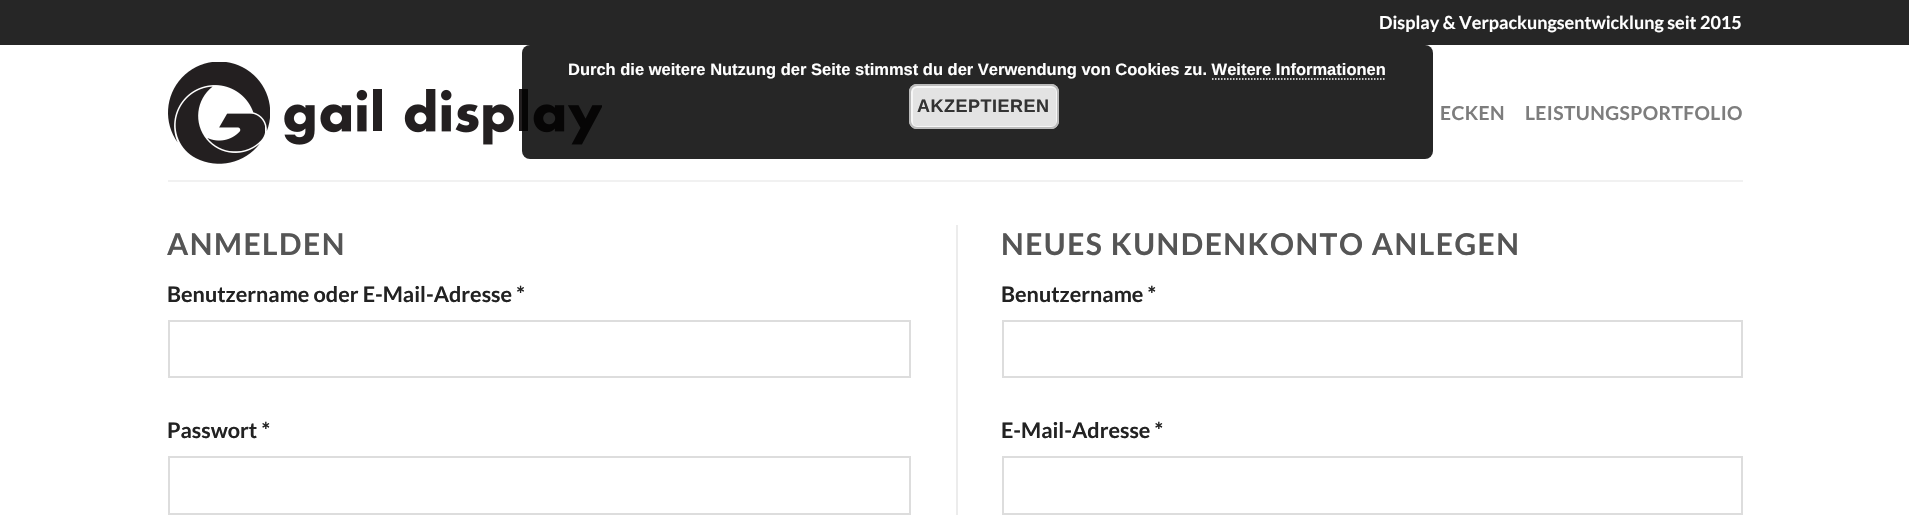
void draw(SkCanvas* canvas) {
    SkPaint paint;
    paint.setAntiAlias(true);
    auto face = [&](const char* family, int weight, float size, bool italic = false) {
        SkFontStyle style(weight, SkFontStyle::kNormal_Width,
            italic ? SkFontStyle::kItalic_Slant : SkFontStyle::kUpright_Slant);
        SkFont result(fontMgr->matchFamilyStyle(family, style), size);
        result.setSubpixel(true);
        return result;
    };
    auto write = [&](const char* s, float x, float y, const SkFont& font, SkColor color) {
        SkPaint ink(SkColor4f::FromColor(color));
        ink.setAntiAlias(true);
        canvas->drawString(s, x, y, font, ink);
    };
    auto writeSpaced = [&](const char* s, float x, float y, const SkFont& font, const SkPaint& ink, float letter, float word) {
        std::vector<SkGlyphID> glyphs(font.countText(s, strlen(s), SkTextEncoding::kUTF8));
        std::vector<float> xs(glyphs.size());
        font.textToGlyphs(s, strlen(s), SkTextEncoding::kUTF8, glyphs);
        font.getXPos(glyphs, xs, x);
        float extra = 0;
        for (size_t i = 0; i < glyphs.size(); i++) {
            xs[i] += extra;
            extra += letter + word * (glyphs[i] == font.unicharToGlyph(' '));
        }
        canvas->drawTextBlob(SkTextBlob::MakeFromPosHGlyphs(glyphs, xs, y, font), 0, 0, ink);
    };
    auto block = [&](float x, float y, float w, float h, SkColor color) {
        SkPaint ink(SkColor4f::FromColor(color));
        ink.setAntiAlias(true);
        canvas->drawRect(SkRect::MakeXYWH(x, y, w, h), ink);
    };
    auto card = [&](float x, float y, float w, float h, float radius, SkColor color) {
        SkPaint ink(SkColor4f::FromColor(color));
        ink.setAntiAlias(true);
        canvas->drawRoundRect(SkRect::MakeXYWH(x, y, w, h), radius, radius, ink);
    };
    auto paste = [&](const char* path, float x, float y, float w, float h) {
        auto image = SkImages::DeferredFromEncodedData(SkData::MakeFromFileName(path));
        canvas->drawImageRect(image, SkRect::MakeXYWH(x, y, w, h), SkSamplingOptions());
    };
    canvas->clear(SK_ColorWHITE);
    block(0, 0, 1909, 45, SkColorSetRGB(38, 38, 38));
    auto kFont1 = face("Lato", 700, 18);
    write("Display & Verpackungsentwicklung seit 2015", 1379, 29, kFont1, SK_ColorWHITE);
    paste("pic1.png", 168, 62, 434, 102);
    auto kFont2 = face("Lato", 700, 19.25f);
    paint.setColor(SkColorSetRGB(125, 125, 125));
    writeSpaced("ECKEN", 1440, 120, kFont2, paint, 0.4f, 0);
    writeSpaced("LEISTUNGSPORTFOLIO", 1525, 120, kFont2, paint, 0.4f, 0);
    block(168, 180, 1575, 2, SkColorSetRGB(241, 241, 241));
    auto kFont3 = face("Lato", 700, 30);
    paint.setColor(SkColorSetRGB(85, 85, 85));
    writeSpaced("ANMELDEN", 167, 255, kFont3, paint, 1.5f, 0);
    auto kFont4 = face("Lato", 700, 21.6f);
    write("Benutzername oder E-Mail-Adresse *", 167, 302, kFont4, SkColorSetRGB(34, 34, 34));
    paint.setStyle(SkPaint::kStroke_Style);
    paint.setStrokeWidth(2);
    paint.setColor(SkColorSetRGB(221, 221, 221));
    canvas->drawRect(SkRect::MakeXYWH(169, 321, 741, 56), paint);
    write("Passwort *", 167, 438, kFont4, SkColorSetRGB(34, 34, 34));
    canvas->drawRect(SkRect::MakeXYWH(169, 457, 741, 57), paint);
    block(956, 225, 2, 290, SkColorSetRGB(236, 236, 236));
    paint.setStyle(SkPaint::kFill_Style);
    paint.setColor(SkColorSetRGB(85, 85, 85));
    writeSpaced("NEUES KUNDENKONTO ANLEGEN", 1001, 255, kFont3, paint, 1.5f, 0);
    write("Benutzername *", 1001, 302, kFont4, SkColorSetRGB(34, 34, 34));
    paint.setStyle(SkPaint::kStroke_Style);
    paint.setColor(SkColorSetRGB(221, 221, 221));
    canvas->drawRect(SkRect::MakeXYWH(1003, 321, 739, 56), paint);
    write("E-Mail-Adresse *", 1001, 438, kFont4, SkColorSetRGB(34, 34, 34));
    canvas->drawRect(SkRect::MakeXYWH(1003, 457, 739, 57), paint);
    card(522, 45, 911, 114, 8, SkColorSetARGB(217, 0, 0, 0));
    auto kFont5 = face("Liberation Sans", 700, 16.5f);
    write("Durch die weitere Nutzung der Seite stimmst du der Verwendung von Cookies zu. Weitere Informationen", 568, 75, kFont5, SK_ColorWHITE);
    paint.setStrokeWidth(1.5f);
    paint.setColor(SK_ColorWHITE);
    paint.setPathEffect(SkDashPathEffect::Make({{1.5f, 1.5f}}, 0));
    canvas->drawPath(SkPathBuilder().moveTo(1212, 79).lineTo(1386, 79).detach(), paint);
    paint.setPathEffect(nullptr);
    card(909, 84, 150, 45, 8, SkColorSetRGB(227, 227, 227));
    paint.setStrokeWidth(2);
    paint.setColor(SkColorSetRGB(246, 246, 246));
    canvas->drawRoundRect(SkRect::MakeXYWH(912, 87, 145, 40), 5, 5, paint);
    paint.setColor(SkColorSetRGB(187, 187, 187));
    canvas->drawRoundRect(SkRect::MakeXYWH(910, 85, 148, 43), 7, 7, paint);
    auto kFont6 = face("Liberation Sans", 700, 18);
    paint.setStyle(SkPaint::kFill_Style);
    paint.setColor(SkColorSetRGB(51, 51, 51));
    writeSpaced("AKZEPTIEREN", 917, 112, kFont6, paint, 0.5f, 0);
}
